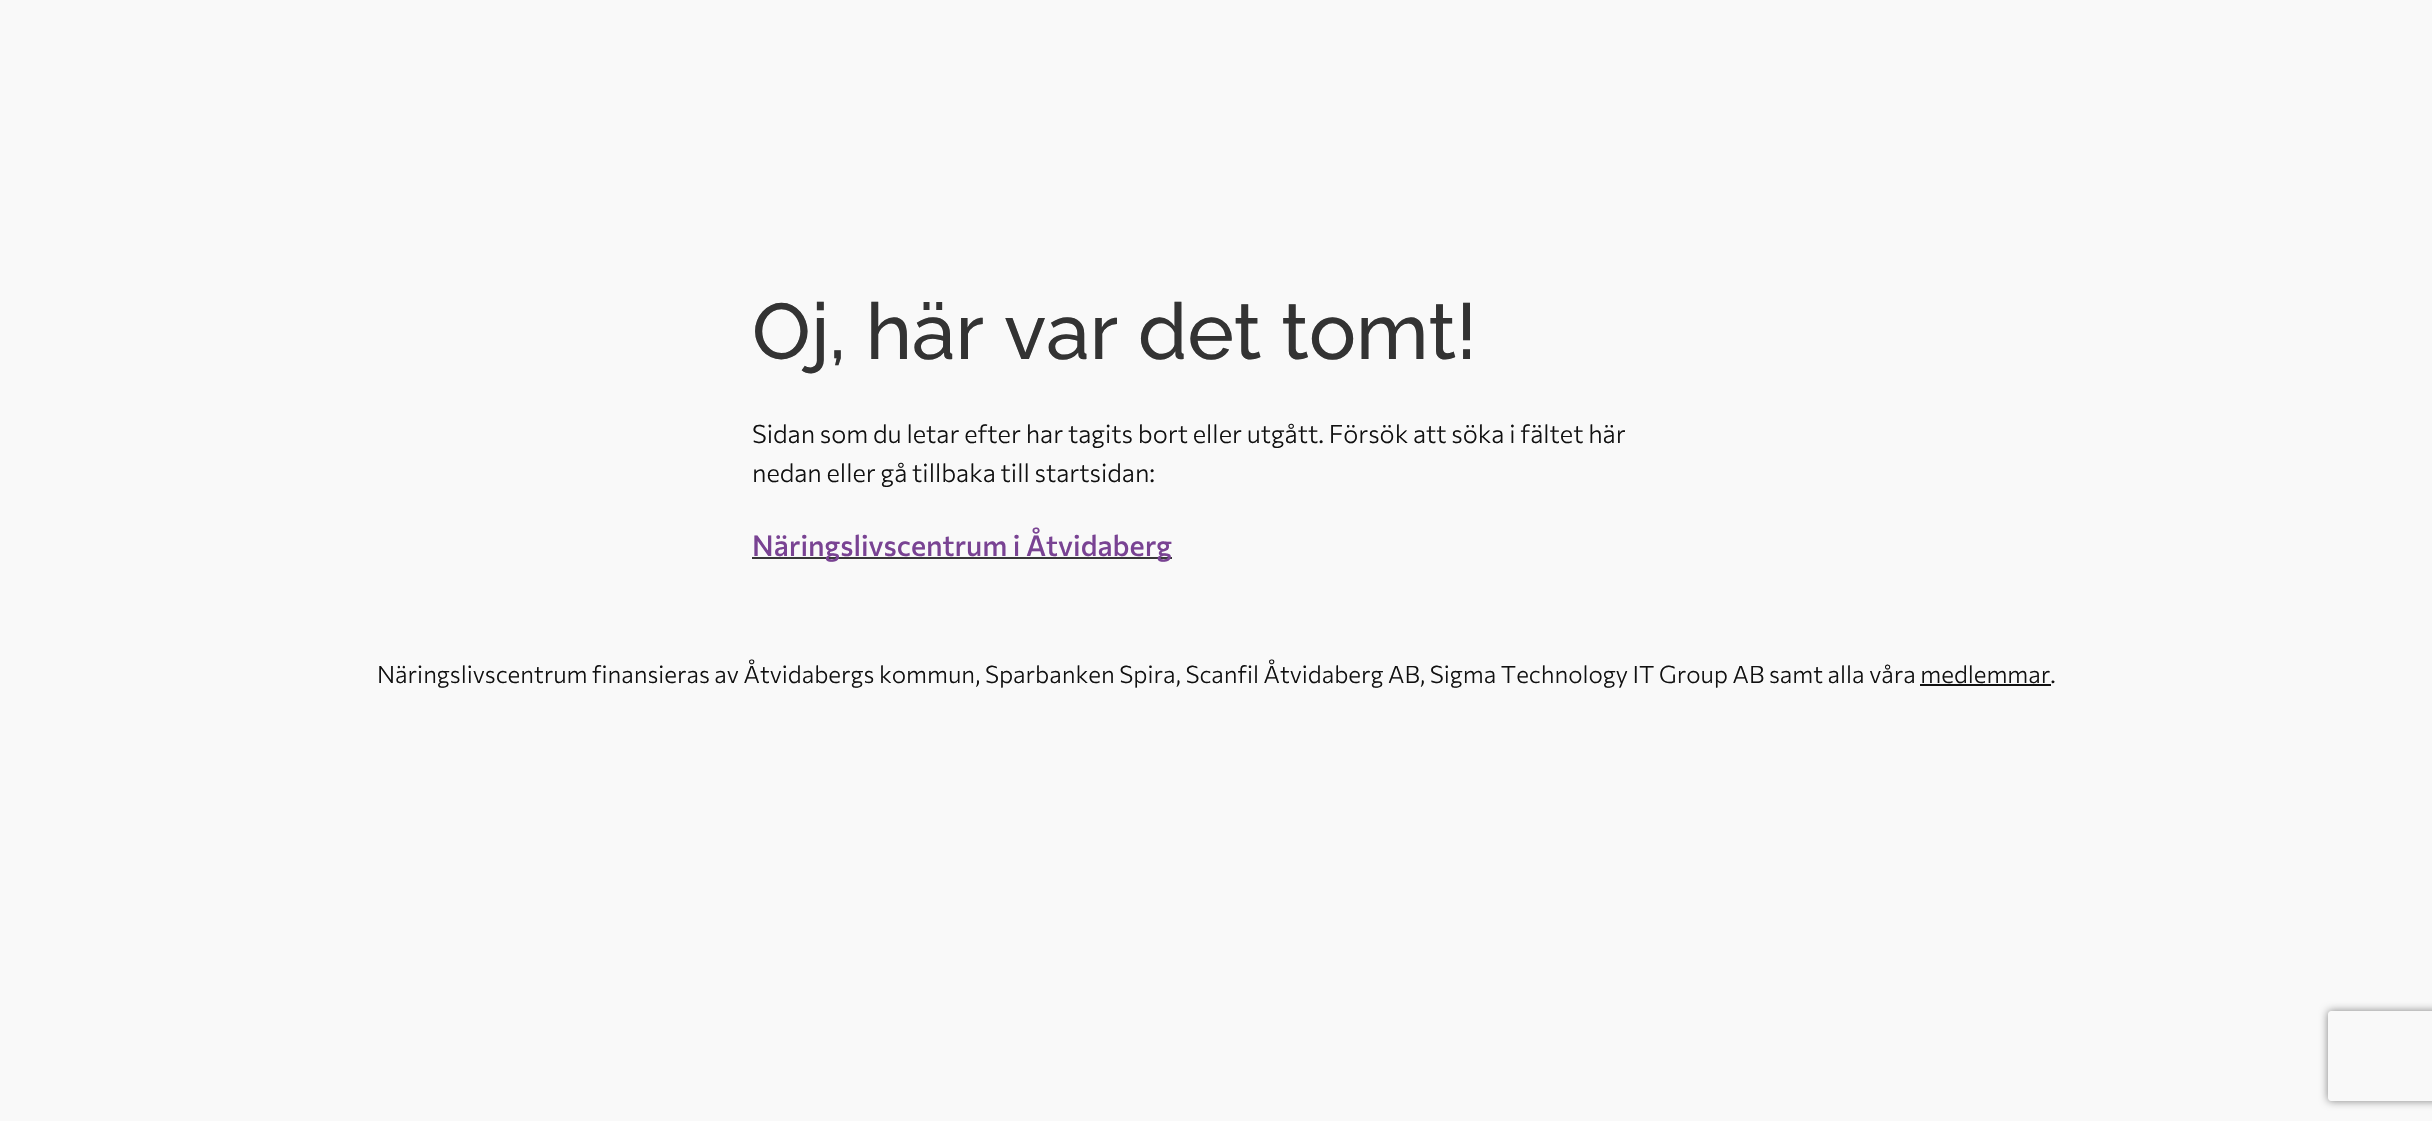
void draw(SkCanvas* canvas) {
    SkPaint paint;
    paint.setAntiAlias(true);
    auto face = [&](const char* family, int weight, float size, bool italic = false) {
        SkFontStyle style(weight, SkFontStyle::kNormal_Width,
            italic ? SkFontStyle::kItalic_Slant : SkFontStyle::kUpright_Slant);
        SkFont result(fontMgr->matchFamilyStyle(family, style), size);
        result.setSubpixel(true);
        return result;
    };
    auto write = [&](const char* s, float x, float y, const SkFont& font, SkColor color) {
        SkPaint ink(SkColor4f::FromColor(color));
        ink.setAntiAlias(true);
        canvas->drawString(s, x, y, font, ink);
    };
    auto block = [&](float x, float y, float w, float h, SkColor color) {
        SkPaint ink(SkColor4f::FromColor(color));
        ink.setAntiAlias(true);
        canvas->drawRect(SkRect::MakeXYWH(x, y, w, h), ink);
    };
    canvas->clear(SkColorSetRGB(249, 249, 249));
    auto kFont1 = face("Raleway", 500, 78.5f);
    write("Oj, här var det tomt!", 752, 359, kFont1, SkColorSetRGB(51, 51, 51));
    auto kFont2 = face("Commissioner", 300, 25.2f);
    write("Sidan som du letar efter har tagits bort eller utgått. Försök att söka i fältet här", 752, 443, kFont2, SkColorSetRGB(17, 17, 17));
    write("nedan eller gå tillbaka till startsidan:", 752, 482, kFont2, SkColorSetRGB(17, 17, 17));
    block(752, 557, 420, 2, SkColorSetRGB(55, 55, 55));
    auto kFont3 = face("Commissioner", 500, 28.75f);
    write("Näringslivscentrum i Åtvidaberg", 752, 556, kFont3, SkColorSetRGB(121, 67, 147));
    auto kFont4 = face("Commissioner", 300, 24);
    write("Näringslivscentrum finansieras av Åtvidabergs kommun, Sparbanken Spira, Scanfil Åtvidaberg AB, Sigma Technology IT Group AB samt alla våra medlemmar.", 377, 683, kFont4, SkColorSetRGB(17, 17, 17));
    block(1920, 684, 131, 2, SkColorSetRGB(17, 17, 17));
    canvas->save();
    canvas->clipPath(SkPathBuilder(SkPathFillType::kEvenOdd).moveTo(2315, 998).lineTo(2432, 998).lineTo(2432, 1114).lineTo(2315, 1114).close().moveTo(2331, 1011).lineTo(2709, 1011).cubicTo(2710.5f, 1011, 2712, 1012.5f, 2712, 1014).lineTo(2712, 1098).cubicTo(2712, 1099.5f, 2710.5f, 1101, 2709, 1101).lineTo(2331, 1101).cubicTo(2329.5f, 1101, 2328, 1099.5f, 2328, 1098).lineTo(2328, 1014).cubicTo(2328, 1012.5f, 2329.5f, 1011, 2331, 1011).close().detach(), true);
    paint.setColor(SkColorSetRGB(128, 128, 128));
    paint.setMaskFilter(SkMaskFilter::MakeBlur(kNormal_SkBlurStyle, 4));
    canvas->drawRoundRect(SkRect::MakeXYWH(2328, 1011, 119, 90), 3, 3, paint);
    paint.setMaskFilter(nullptr);
    canvas->restore();
}
